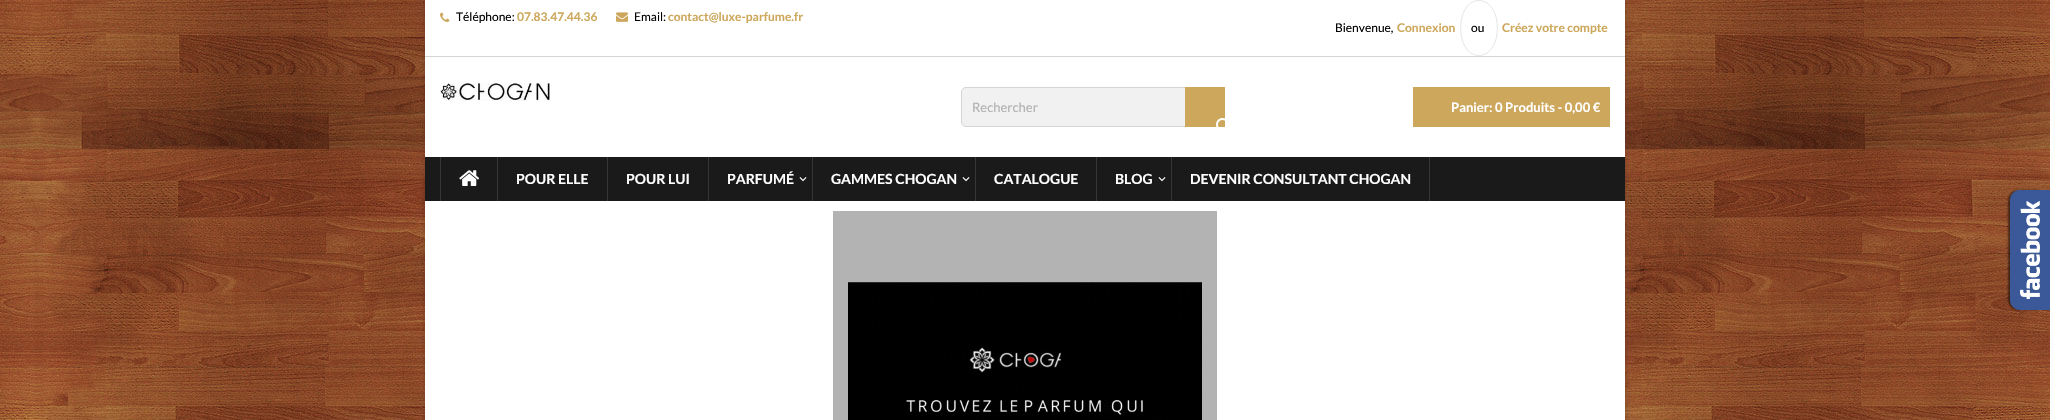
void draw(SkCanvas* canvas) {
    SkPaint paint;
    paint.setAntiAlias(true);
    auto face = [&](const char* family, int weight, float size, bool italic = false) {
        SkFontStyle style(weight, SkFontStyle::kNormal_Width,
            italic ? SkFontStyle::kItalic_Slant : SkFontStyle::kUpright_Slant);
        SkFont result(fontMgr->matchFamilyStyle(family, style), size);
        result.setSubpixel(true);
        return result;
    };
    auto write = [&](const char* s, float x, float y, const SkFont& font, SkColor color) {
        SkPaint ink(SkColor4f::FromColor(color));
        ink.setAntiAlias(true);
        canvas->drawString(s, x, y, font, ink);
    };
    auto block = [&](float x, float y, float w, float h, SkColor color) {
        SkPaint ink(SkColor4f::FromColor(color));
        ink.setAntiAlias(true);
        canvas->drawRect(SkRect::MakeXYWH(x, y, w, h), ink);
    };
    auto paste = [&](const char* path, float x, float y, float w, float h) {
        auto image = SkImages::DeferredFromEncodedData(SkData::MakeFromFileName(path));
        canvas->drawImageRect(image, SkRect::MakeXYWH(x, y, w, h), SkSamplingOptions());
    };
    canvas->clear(SK_ColorWHITE);
    paste("pic1.png", 0, 0, 2050, 420);
    paint.setColor(SkColorSetARGB(51, 0, 0, 0));
    paint.setMaskFilter(SkMaskFilter::MakeBlur(kNormal_SkBlurStyle, 2));
    canvas->drawRect(SkRect::MakeXYWH(425, 0, 1200, 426), paint);
    paint.setMaskFilter(nullptr);
    block(425, 0, 1200, 420, SK_ColorWHITE);
    block(425, 56, 1200, 1, SkColorSetRGB(214, 212, 212));
    paste("pic2.png", 440, 12, 10, 10);
    auto kFont1 = face("Lato", 400, 12);
    write("Téléphone:", 456, 21, kFont1, SK_ColorBLACK);
    auto kFont2 = face("Lato", 700, 12);
    write("07.83.47.44.36", 517, 21, kFont2, SkColorSetRGB(205, 168, 92));
    paste("pic3.png", 616, 12, 12, 10);
    write("Email:", 634, 21, kFont1, SK_ColorBLACK);
    write("contact@luxe-parfume.fr", 668, 21, kFont2, SkColorSetRGB(205, 168, 92));
    write("Bienvenue,", 1335, 32, kFont1, SK_ColorBLACK);
    write("Connexion", 1397, 32, kFont2, SkColorSetRGB(205, 168, 92));
    paint.setStyle(SkPaint::kStroke_Style);
    paint.setStrokeWidth(1);
    paint.setColor(SkColorSetRGB(230, 230, 230));
    canvas->drawPath(SkPathBuilder().moveTo(1479, 0.5f).cubicTo(1503.5f, 0.5f, 1503.5f, 55.5f, 1479, 55.5f).cubicTo(1454.5f, 55.5f, 1454.5f, 0.5f, 1479, 0.5f).close().detach(), paint);
    write("ou", 1471, 32, kFont1, SK_ColorBLACK);
    write("Créez votre compte", 1502, 32, kFont2, SkColorSetRGB(205, 168, 92));
    paste("pic4.png", 440, 83, 110, 18);
    paint.setStyle(SkPaint::kFill_Style);
    paint.setColor(SkColorSetRGB(241, 241, 241));
    canvas->drawRoundRect(SkRect::MakeXYWH(961.5f, 87.5f, 263, 39), 4.5f, 4.5f, paint);
    paint.setStyle(SkPaint::kStroke_Style);
    paint.setColor(SkColorSetRGB(214, 212, 212));
    canvas->drawRoundRect(SkRect::MakeXYWH(961.5f, 87.5f, 263, 39), 4.5f, 4.5f, paint);
    auto kFont3 = face("Lato", 400, 13);
    write("Rechercher", 972, 112, kFont3, SkColorSetRGB(177, 177, 177));
    block(1185, 87, 40, 40, SkColorSetRGB(205, 168, 92));
    paste("pic5.png", 1216, 118, 9, 9);
    block(1413, 87, 197, 40, SkColorSetRGB(205, 168, 92));
    auto kFont4 = face("Lato", 700, 13);
    write("Panier: 0 Produits - 0,00 €", 1451, 112, kFont4, SK_ColorWHITE);
    block(425, 157, 1200, 44, SkColorSetRGB(27, 26, 27));
    block(440, 157, 1, 44, SkColorSetRGB(54, 54, 54));
    paste("pic6.png", 459, 170, 21, 16);
    block(497, 157, 1, 44, SkColorSetRGB(54, 54, 54));
    auto kFont5 = face("Lato", 700, 14);
    write("POUR ELLE", 516, 184, kFont5, SK_ColorWHITE);
    block(607, 157, 1, 44, SkColorSetRGB(54, 54, 54));
    write("POUR LUI", 626, 184, kFont5, SK_ColorWHITE);
    block(708, 157, 1, 44, SkColorSetRGB(54, 54, 54));
    write("PARFUMÉ", 727, 184, kFont5, SK_ColorWHITE);
    paste("pic7.png", 799, 177, 8, 5);
    block(812, 157, 1, 44, SkColorSetRGB(54, 54, 54));
    write("GAMMES CHOGAN", 831, 184, kFont5, SK_ColorWHITE);
    paste("pic7.png", 962, 177, 8, 5);
    block(975, 157, 1, 44, SkColorSetRGB(54, 54, 54));
    write("CATALOGUE", 994, 184, kFont5, SK_ColorWHITE);
    block(1096, 157, 1, 44, SkColorSetRGB(54, 54, 54));
    write("BLOG", 1115, 184, kFont5, SK_ColorWHITE);
    paste("pic7.png", 1158, 177, 8, 5);
    block(1429, 157, 1, 44, SkColorSetRGB(54, 54, 54));
    block(1171, 157, 1, 44, SkColorSetRGB(54, 54, 54));
    write("DEVENIR CONSULTANT CHOGAN", 1190, 184, kFont5, SK_ColorWHITE);
    block(833, 211, 384, 209, SkColorSetRGB(179, 179, 179));
    paste("pic8.png", 848, 282, 354, 138);
    paint.setStyle(SkPaint::kFill_Style);
    paint.setColor(SkColorSetARGB(128, 0, 0, 0));
    paint.setMaskFilter(SkMaskFilter::MakeBlur(kNormal_SkBlurStyle, 1));
    canvas->drawRoundRect(SkRect::MakeXYWH(2008, 190, 40, 120), 10, 10, paint);
    paint.setMaskFilter(nullptr);
    paint.setColor(SkColorSetRGB(59, 89, 152));
    canvas->drawPath(SkPathBuilder().moveTo(2020, 190).lineTo(2050, 190).lineTo(2050, 310).lineTo(2020, 310).cubicTo(2014.5f, 310, 2010, 305.5f, 2010, 300).lineTo(2010, 200).cubicTo(2010, 194.5f, 2014.5f, 190, 2020, 190).close().detach(), paint);
    paste("pic9.png", 2020, 201, 20, 98);
}
